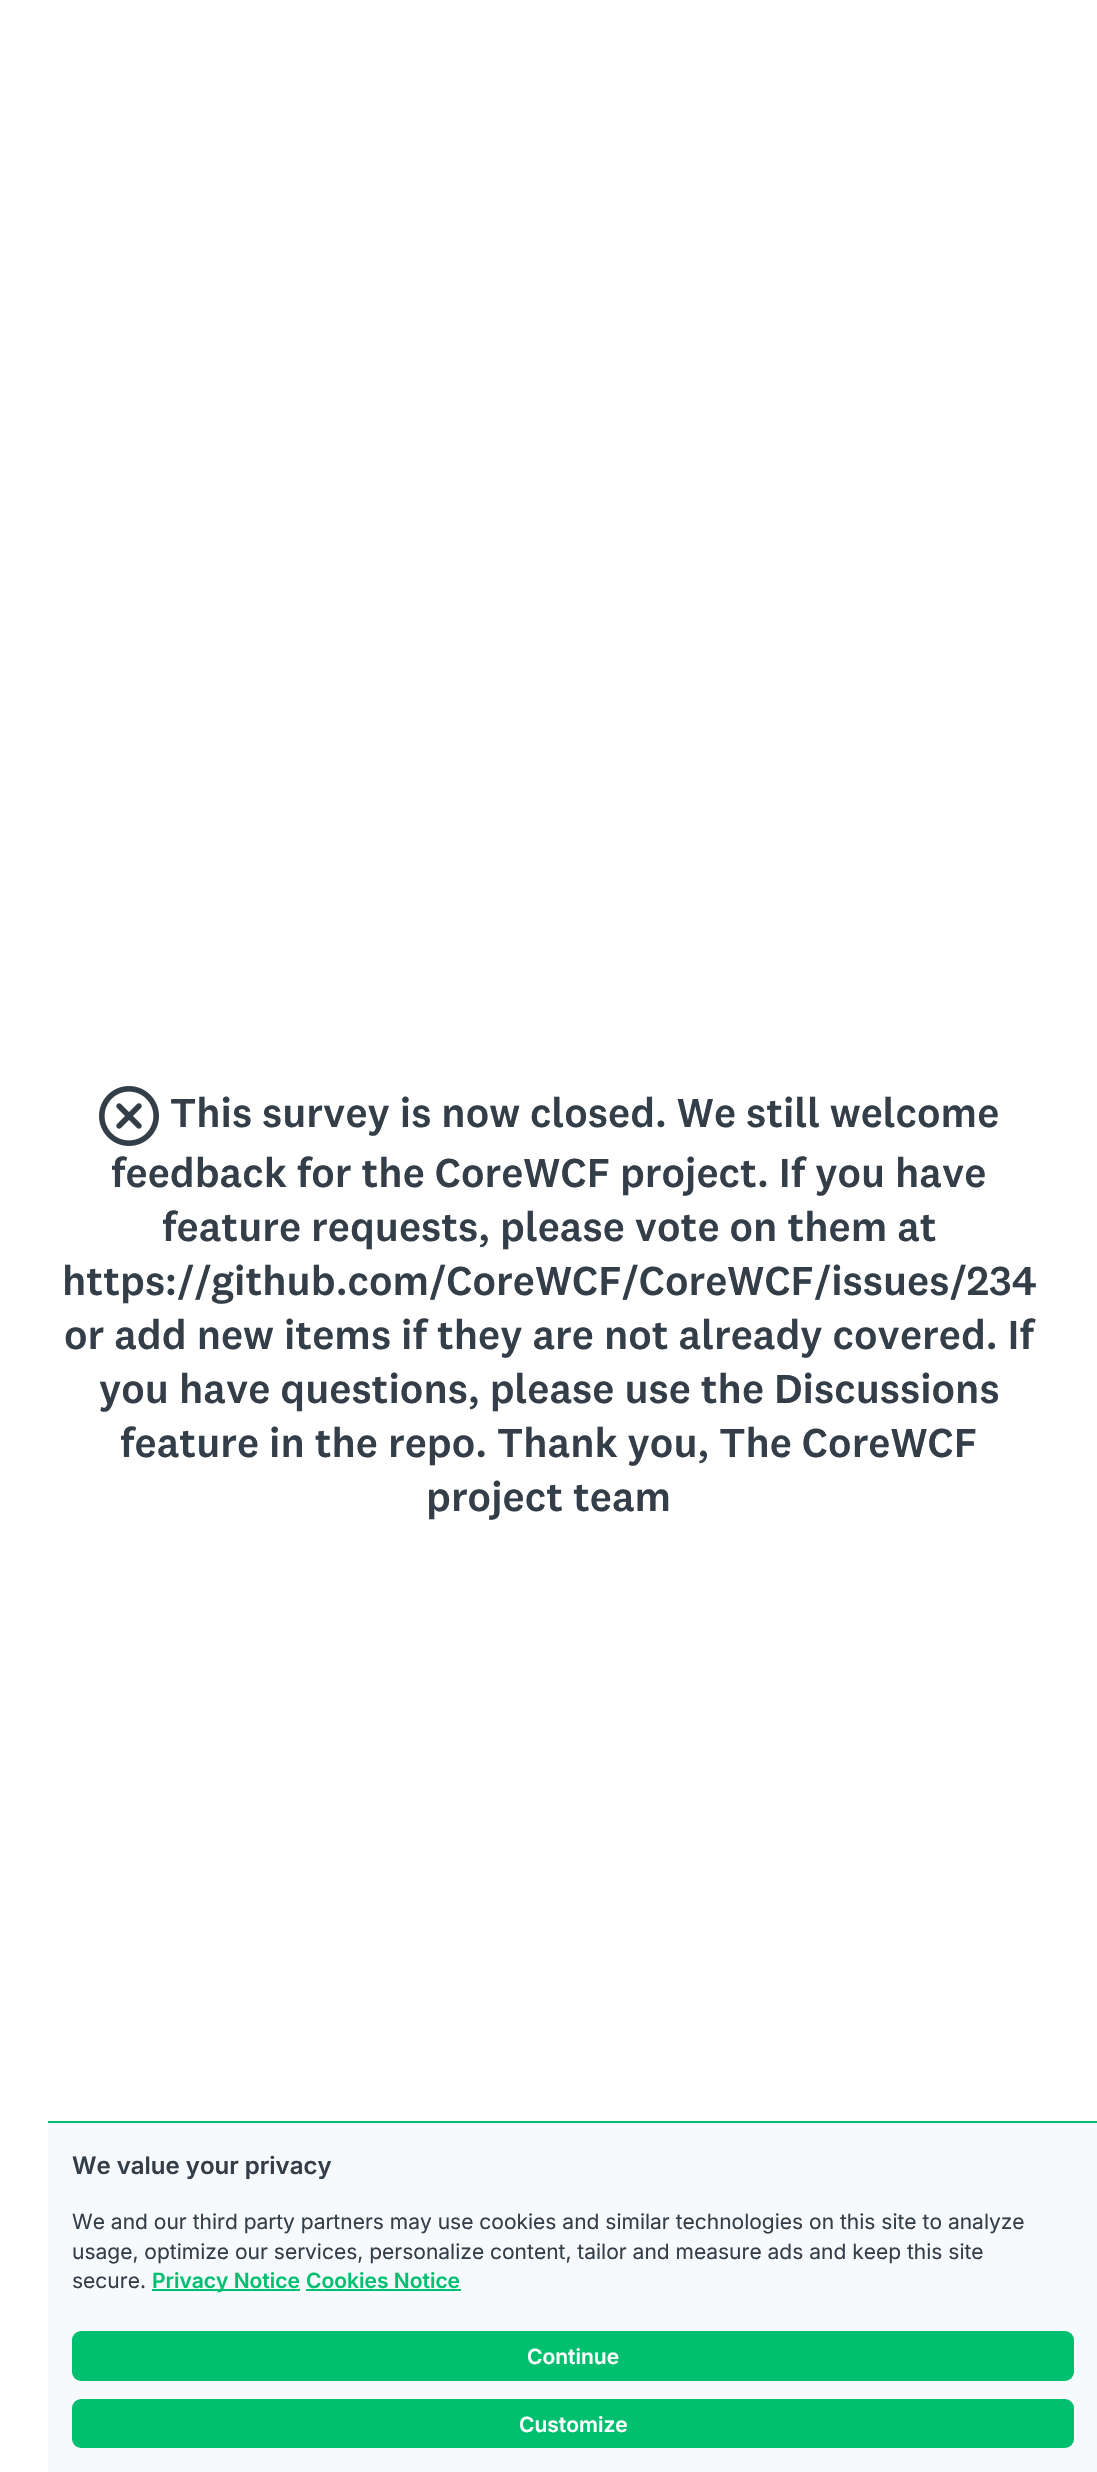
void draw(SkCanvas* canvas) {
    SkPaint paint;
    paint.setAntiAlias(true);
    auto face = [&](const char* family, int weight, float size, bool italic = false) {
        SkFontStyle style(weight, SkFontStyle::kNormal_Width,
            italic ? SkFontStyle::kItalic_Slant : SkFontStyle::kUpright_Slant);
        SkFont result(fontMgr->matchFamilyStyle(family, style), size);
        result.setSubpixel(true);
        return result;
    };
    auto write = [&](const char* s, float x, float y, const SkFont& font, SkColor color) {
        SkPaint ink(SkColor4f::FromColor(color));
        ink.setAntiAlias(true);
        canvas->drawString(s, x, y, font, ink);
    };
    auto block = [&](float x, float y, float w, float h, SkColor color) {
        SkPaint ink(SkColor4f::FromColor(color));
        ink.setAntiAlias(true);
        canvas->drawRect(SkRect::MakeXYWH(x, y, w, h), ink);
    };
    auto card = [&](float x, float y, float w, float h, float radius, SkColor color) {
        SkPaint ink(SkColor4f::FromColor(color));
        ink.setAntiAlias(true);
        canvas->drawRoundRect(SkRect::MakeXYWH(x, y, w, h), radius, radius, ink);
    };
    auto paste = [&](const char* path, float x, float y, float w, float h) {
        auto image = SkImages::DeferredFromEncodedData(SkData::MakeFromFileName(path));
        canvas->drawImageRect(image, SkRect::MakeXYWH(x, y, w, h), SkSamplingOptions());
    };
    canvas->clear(SK_ColorWHITE);
    paste("pic1.png", 99, 1086, 60, 60);
    auto kFont1 = face("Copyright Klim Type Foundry", 500, 42);
    write("This survey is now closed. We still welcome", 170, 1127, kFont1, SkColorSetRGB(51, 62, 72));
    write("feedback for the CoreWCF project. If you have", 111, 1187, kFont1, SkColorSetRGB(51, 62, 72));
    write("feature requests, please vote on them at", 162, 1241, kFont1, SkColorSetRGB(51, 62, 72));
    write("https://github.com/CoreWCF/CoreWCF/issues/234", 62, 1295, kFont1, SkColorSetRGB(51, 62, 72));
    write("or add new items if they are not already covered. If", 64, 1349, kFont1, SkColorSetRGB(51, 62, 72));
    write("you have questions, please use the Discussions", 99, 1403, kFont1, SkColorSetRGB(51, 62, 72));
    write("feature in the repo. Thank you, The CoreWCF", 120, 1457, kFont1, SkColorSetRGB(51, 62, 72));
    write("project team", 426, 1511, kFont1, SkColorSetRGB(51, 62, 72));
    block(48, 2123, 1049, 349, SkColorSetRGB(247, 250, 252));
    block(48, 2121, 1049, 2, SkColorSetRGB(0, 191, 111));
    auto kFont2 = face("Inter", 600, 24);
    write("We value your privacy", 72, 2174, kFont2, SkColorSetRGB(51, 62, 72));
    auto kFont3 = face("Inter", 400, 21);
    write("We and our third party partners may use cookies and similar technologies on this site to analyze", 72, 2229, kFont3, SkColorSetRGB(51, 62, 72));
    write("usage, optimize our services, personalize content, tailor and measure ads and keep this site", 72, 2259, kFont3, SkColorSetRGB(51, 62, 72));
    write("secure.", 72, 2288, kFont3, SkColorSetRGB(51, 62, 72));
    block(152, 2289, 148, 2, SkColorSetRGB(0, 191, 111));
    auto kFont4 = face("Inter", 600, 21);
    write("Privacy Notice", 152, 2288, kFont4, SkColorSetRGB(0, 191, 111));
    write("Cookies Notice", 306, 2288, kFont4, SkColorSetRGB(0, 191, 111));
    block(306, 2289, 155, 2, SkColorSetRGB(0, 191, 111));
    card(72, 2331, 1002, 50, 9, SkColorSetRGB(0, 191, 111));
    write("Continue", 527, 2364, kFont4, SK_ColorWHITE);
    card(72, 2399, 1002, 49, 9, SkColorSetRGB(0, 191, 111));
    write("Customize", 519, 2432, kFont4, SK_ColorWHITE);
}
